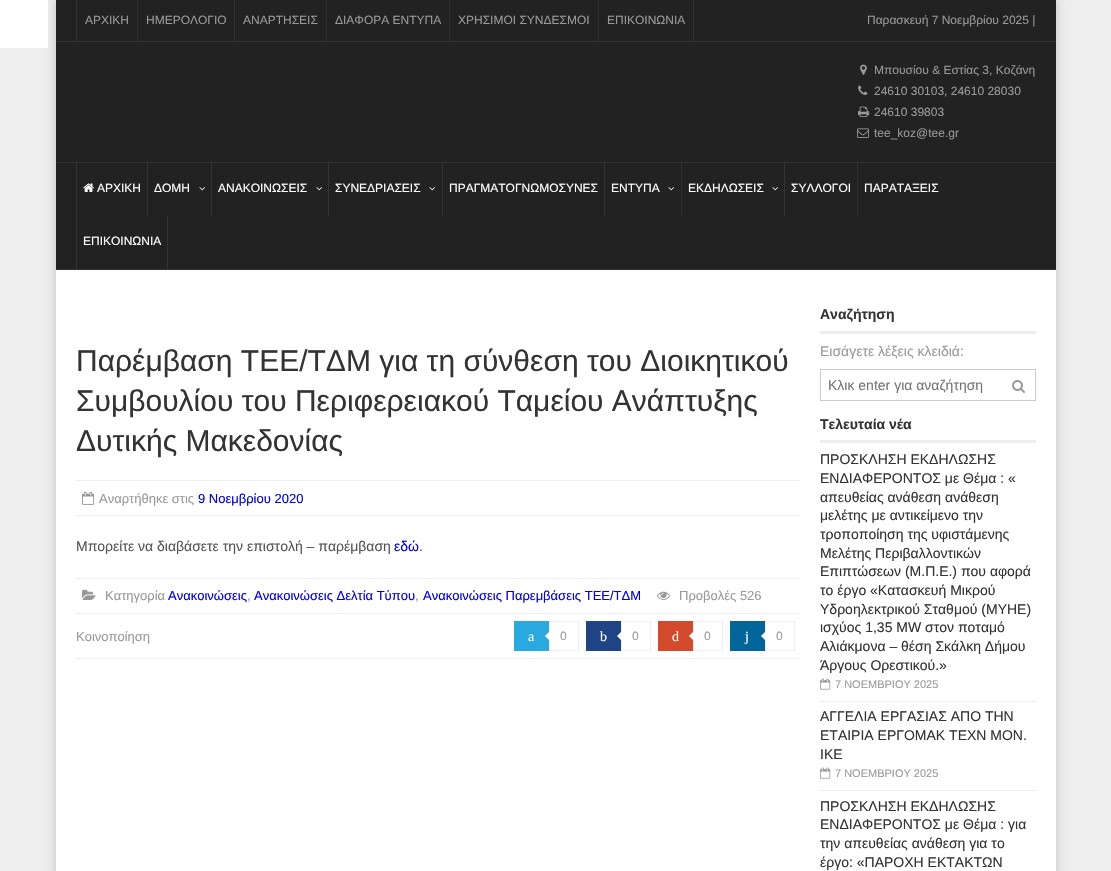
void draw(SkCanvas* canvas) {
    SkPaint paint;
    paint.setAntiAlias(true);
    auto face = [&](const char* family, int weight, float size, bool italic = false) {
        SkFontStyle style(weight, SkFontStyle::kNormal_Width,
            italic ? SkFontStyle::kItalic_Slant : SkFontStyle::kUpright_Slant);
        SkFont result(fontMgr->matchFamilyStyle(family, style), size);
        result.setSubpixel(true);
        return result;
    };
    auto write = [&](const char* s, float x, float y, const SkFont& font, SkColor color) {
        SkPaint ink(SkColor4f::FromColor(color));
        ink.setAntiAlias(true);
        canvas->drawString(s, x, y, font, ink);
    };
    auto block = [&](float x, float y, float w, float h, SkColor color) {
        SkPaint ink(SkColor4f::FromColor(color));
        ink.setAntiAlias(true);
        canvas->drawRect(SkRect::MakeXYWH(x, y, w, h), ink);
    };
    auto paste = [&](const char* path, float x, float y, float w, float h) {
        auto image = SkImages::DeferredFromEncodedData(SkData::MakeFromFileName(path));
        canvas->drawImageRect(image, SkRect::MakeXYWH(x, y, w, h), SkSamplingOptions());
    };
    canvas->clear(SkColorSetRGB(238, 238, 238));
    paint.setColor(SkColorSetARGB(51, 0, 0, 0));
    paint.setMaskFilter(SkMaskFilter::MakeBlur(kNormal_SkBlurStyle, 5));
    canvas->drawRect(SkRect::MakeXYWH(56, 0, 1000, 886), paint);
    paint.setMaskFilter(nullptr);
    block(0, 0, 48, 48, SK_ColorWHITE);
    block(56, 270, 1000, 601, SK_ColorWHITE);
    block(56, 0, 1000, 269, SkColorSetRGB(34, 34, 34));
    block(56, 41, 1000, 1, SkColorSetRGB(51, 51, 51));
    block(76, 0, 1, 41, SkColorSetRGB(51, 51, 51));
    auto kFont1 = face("Liberation Sans", 400, 12);
    write("ΑΡΧΙΚΗ", 85, 24, kFont1, SkColorSetRGB(153, 153, 153));
    block(137, 0, 1, 41, SkColorSetRGB(51, 51, 51));
    write("ΗΜΕΡΟΛΟΓΙΟ", 146, 24, kFont1, SkColorSetRGB(153, 153, 153));
    block(234, 0, 1, 41, SkColorSetRGB(51, 51, 51));
    write("ΑΝΑΡΤΗΣΕΙΣ", 243, 24, kFont1, SkColorSetRGB(153, 153, 153));
    block(326, 0, 1, 41, SkColorSetRGB(51, 51, 51));
    write("ΔΙΑΦΟΡΑ ΕΝΤΥΠΑ", 335, 24, kFont1, SkColorSetRGB(153, 153, 153));
    block(449, 0, 1, 41, SkColorSetRGB(51, 51, 51));
    write("ΧΡΗΣΙΜΟΙ ΣΥΝΔΕΣΜΟΙ", 458, 24, kFont1, SkColorSetRGB(153, 153, 153));
    block(693, 0, 1, 41, SkColorSetRGB(51, 51, 51));
    block(598, 0, 1, 41, SkColorSetRGB(51, 51, 51));
    write("ΕΠΙΚΟΙΝΩΝΙΑ", 607, 24, kFont1, SkColorSetRGB(153, 153, 153));
    write("Παρασκευή 7 Νοεμβρίου 2025 |", 867, 24, kFont1, SkColorSetRGB(153, 153, 153));
    paste("pic1.png", 860, 64, 7, 11);
    write("Μπουσίου & Εστίας 3, Κοζάνη", 874, 74, kFont1, SkColorSetRGB(153, 153, 153));
    paste("pic2.png", 858, 85, 10, 10);
    write("24610 30103, 24610 28030", 874, 95, kFont1, SkColorSetRGB(153, 153, 153));
    paste("pic3.png", 858, 106, 12, 11);
    write("24610 39803", 874, 116, kFont1, SkColorSetRGB(153, 153, 153));
    paste("pic4.png", 857, 128, 12, 10);
    write("tee_koz@tee.gr", 874, 137, kFont1, SkColorSetRGB(153, 153, 153));
    block(56, 162, 1000, 1, SkColorSetRGB(51, 51, 51));
    block(56, 269, 1000, 1, SkColorSetRGB(51, 51, 51));
    block(76, 163, 1, 106, SkColorSetRGB(51, 51, 51));
    paste("pic5.png", 83, 183, 11, 9);
    write("ΑΡΧΙΚΗ", 97, 192, kFont1, SK_ColorWHITE);
    block(147, 163, 1, 53, SkColorSetRGB(51, 51, 51));
    write("ΔΟΜΗ", 154, 192, kFont1, SK_ColorWHITE);
    paste("pic6.png", 199, 187, 6, 4);
    block(211, 163, 1, 53, SkColorSetRGB(51, 51, 51));
    write("ΑΝΑΚΟΙΝΩΣΕΙΣ", 218, 192, kFont1, SK_ColorWHITE);
    paste("pic6.png", 316, 187, 6, 4);
    block(328, 163, 1, 53, SkColorSetRGB(51, 51, 51));
    write("ΣΥΝΕΔΡΙΑΣΕΙΣ", 335, 192, kFont1, SK_ColorWHITE);
    paste("pic6.png", 429, 187, 6, 4);
    block(442, 163, 1, 53, SkColorSetRGB(51, 51, 51));
    write("ΠΡΑΓΜΑΤΟΓΝΩΜΟΣΥΝΕΣ", 449, 192, kFont1, SK_ColorWHITE);
    block(604, 163, 1, 53, SkColorSetRGB(51, 51, 51));
    write("ΕΝΤΥΠΑ", 611, 192, kFont1, SK_ColorWHITE);
    paste("pic6.png", 668, 187, 6, 4);
    block(681, 163, 1, 53, SkColorSetRGB(51, 51, 51));
    write("ΕΚΔΗΛΩΣΕΙΣ", 688, 192, kFont1, SK_ColorWHITE);
    paste("pic6.png", 772, 187, 6, 4);
    block(784, 163, 1, 53, SkColorSetRGB(51, 51, 51));
    write("ΣΥΛΛΟΓΟΙ", 791, 192, kFont1, SK_ColorWHITE);
    block(857, 163, 1, 53, SkColorSetRGB(51, 51, 51));
    write("ΠΑΡΑΤΑΞΕΙΣ", 864, 192, kFont1, SK_ColorWHITE);
    block(167, 216, 1, 53, SkColorSetRGB(51, 51, 51));
    write("ΕΠΙΚΟΙΝΩΝΙΑ", 83, 245, kFont1, SK_ColorWHITE);
    auto kFont2 = face("Liberation Sans", 400, 30);
    write("Παρέμβαση ΤΕΕ/ΤΔΜ για τη σύνθεση του Διοικητικού", 76, 371, kFont2, SkColorSetRGB(51, 51, 51));
    write("Συμβουλίου του Περιφερειακού Ταμείου Ανάπτυξης", 76, 411, kFont2, SkColorSetRGB(51, 51, 51));
    write("Δυτικής Μακεδονίας", 76, 451, kFont2, SkColorSetRGB(51, 51, 51));
    block(76, 480, 724, 1, SkColorSetRGB(238, 238, 238));
    block(76, 515, 724, 1, SkColorSetRGB(238, 238, 238));
    paste("pic7.png", 82, 491, 13, 14);
    auto kFont3 = face("Liberation Sans", 400, 13);
    write("Αναρτήθηκε στις", 99, 503, kFont3, SkColorSetRGB(153, 153, 153));
    write("9 Νοεμβρίου 2020", 198, 503, kFont3, SkColorSetRGB(0, 0, 238));
    block(76, 578, 724, 1, SkColorSetRGB(238, 238, 238));
    auto kFont4 = face("Liberation Sans", 400, 14);
    write("Μπορείτε να διαβάσετε την επιστολή – παρέμβαση", 76, 551, kFont4, SkColorSetRGB(85, 85, 85));
    write("εδώ", 394, 551, kFont4, SkColorSetRGB(0, 0, 238));
    write(".", 419, 551, kFont4, SkColorSetRGB(85, 85, 85));
    block(76, 613, 724, 1, SkColorSetRGB(238, 238, 238));
    paste("pic8.png", 82, 589, 14, 11);
    write("Κατηγορία", 105, 600, kFont3, SkColorSetRGB(153, 153, 153));
    write("Ανακοινώσεις", 168, 600, kFont3, SkColorSetRGB(0, 0, 238));
    write(",", 247, 600, kFont3, SkColorSetRGB(153, 153, 153));
    write("Ανακοινώσεις Δελτία Τύπου", 254, 600, kFont3, SkColorSetRGB(0, 0, 238));
    write(",", 415, 600, kFont3, SkColorSetRGB(153, 153, 153));
    write("Ανακοινώσεις Παρεμβάσεις ΤΕΕ/ΤΔΜ", 423, 600, kFont3, SkColorSetRGB(0, 0, 238));
    paste("pic9.png", 657, 591, 13, 9);
    write("Προβολές 526", 679, 600, kFont3, SkColorSetRGB(153, 153, 153));
    block(76, 658, 724, 1, SkColorSetRGB(238, 238, 238));
    write("Κοινοποίηση", 76, 641, kFont3, SkColorSetRGB(153, 153, 153));
    block(514, 621, 35, 30, SkColorSetRGB(42, 169, 224));
    auto kFont5 = face("Liberation Serif", 400, 14);
    write("a", 528, 641, kFont5, SK_ColorWHITE);
    paint.setStyle(SkPaint::kStroke_Style);
    paint.setStrokeWidth(1);
    paint.setColor(SkColorSetRGB(238, 238, 238));
    canvas->drawRect(SkRect::MakeXYWH(549.5f, 621.5f, 29, 29), paint);
    paint.setStyle(SkPaint::kFill_Style);
    paint.setColor(SK_ColorWHITE);
    canvas->drawPath(SkPathBuilder().moveTo(550, 631).lineTo(550, 641).lineTo(545, 636).close().detach(), paint);
    write("0", 560, 640, kFont1, SkColorSetRGB(153, 153, 153));
    block(586, 621, 35, 30, SkColorSetRGB(32, 67, 133));
    write("b", 600, 641, kFont5, SK_ColorWHITE);
    paint.setStyle(SkPaint::kStroke_Style);
    paint.setColor(SkColorSetRGB(238, 238, 238));
    canvas->drawRect(SkRect::MakeXYWH(621.5f, 621.5f, 29, 29), paint);
    paint.setStyle(SkPaint::kFill_Style);
    paint.setColor(SK_ColorWHITE);
    canvas->drawPath(SkPathBuilder().moveTo(622, 631).lineTo(622, 641).lineTo(617, 636).close().detach(), paint);
    write("0", 632, 640, kFont1, SkColorSetRGB(153, 153, 153));
    block(658, 621, 35, 30, SkColorSetRGB(211, 73, 44));
    write("d", 672, 641, kFont5, SK_ColorWHITE);
    paint.setStyle(SkPaint::kStroke_Style);
    paint.setColor(SkColorSetRGB(238, 238, 238));
    canvas->drawRect(SkRect::MakeXYWH(693.5f, 621.5f, 29, 29), paint);
    paint.setStyle(SkPaint::kFill_Style);
    paint.setColor(SK_ColorWHITE);
    canvas->drawPath(SkPathBuilder().moveTo(694, 631).lineTo(694, 641).lineTo(689, 636).close().detach(), paint);
    write("0", 704, 640, kFont1, SkColorSetRGB(153, 153, 153));
    block(730, 621, 35, 30, SkColorSetRGB(2, 102, 154));
    write("j", 745, 641, kFont5, SK_ColorWHITE);
    paint.setStyle(SkPaint::kStroke_Style);
    paint.setColor(SkColorSetRGB(238, 238, 238));
    canvas->drawRect(SkRect::MakeXYWH(765.5f, 621.5f, 29, 29), paint);
    paint.setStyle(SkPaint::kFill_Style);
    paint.setColor(SK_ColorWHITE);
    canvas->drawPath(SkPathBuilder().moveTo(766, 631).lineTo(766, 641).lineTo(761, 636).close().detach(), paint);
    write("0", 776, 640, kFont1, SkColorSetRGB(153, 153, 153));
    block(820, 331, 216, 3, SkColorSetRGB(238, 238, 238));
    auto kFont6 = face("Liberation Sans", 700, 14);
    write("Αναζήτηση", 820, 319, kFont6, SkColorSetRGB(51, 51, 51));
    write("Εισάγετε λέξεις κλειδιά:", 820, 356, kFont4, SkColorSetRGB(153, 153, 153));
    paint.setStyle(SkPaint::kStroke_Style);
    paint.setColor(SkColorSetRGB(204, 204, 204));
    canvas->drawRect(SkRect::MakeXYWH(820.5f, 369.5f, 215, 31), paint);
    write("Κλικ enter για αναζήτηση", 828, 390, kFont4, SkColorSetRGB(117, 117, 117));
    paste("pic10.png", 1012, 380, 13, 13);
    block(820, 440, 216, 3, SkColorSetRGB(238, 238, 238));
    write("Τελευταία νέα", 820, 429, kFont6, SkColorSetRGB(51, 51, 51));
    block(820, 701, 216, 1, SkColorSetRGB(238, 238, 238));
    write("ΠΡΟΣΚΛΗΣΗ ΕΚΔΗΛΩΣΗΣ", 820, 464, kFont4, SkColorSetRGB(51, 51, 51));
    write("ΕΝΔΙΑΦΕΡΟΝΤΟΣ με Θέμα : «", 820, 483, kFont4, SkColorSetRGB(51, 51, 51));
    write("απευθείας ανάθεση ανάθεση", 820, 502, kFont4, SkColorSetRGB(51, 51, 51));
    write("μελέτης με αντικείμενο την", 820, 520, kFont4, SkColorSetRGB(51, 51, 51));
    write("τροποποίηση της υφιστάμενης", 820, 539, kFont4, SkColorSetRGB(51, 51, 51));
    write("Μελέτης Περιβαλλοντικών", 820, 558, kFont4, SkColorSetRGB(51, 51, 51));
    write("Επιπτώσεων (Μ.Π.Ε.) που αφορά", 820, 576, kFont4, SkColorSetRGB(51, 51, 51));
    write("το έργο «Κατασκευή Μικρού", 820, 595, kFont4, SkColorSetRGB(51, 51, 51));
    write("Υδροηλεκτρικού Σταθμού (ΜΥΗΕ)", 820, 614, kFont4, SkColorSetRGB(51, 51, 51));
    write("ισχύος 1,35 MW στον ποταμό", 820, 632, kFont4, SkColorSetRGB(51, 51, 51));
    write("Αλιάκμονα – θέση Σκάλκη Δήμου", 820, 651, kFont4, SkColorSetRGB(51, 51, 51));
    write("Άργους Ορεστικού.»", 820, 670, kFont4, SkColorSetRGB(51, 51, 51));
    paste("pic11.png", 820, 678, 11, 12);
    auto kFont7 = face("Liberation Sans", 400, 11);
    write("7 ΝΟΕΜΒΡΙΟΥ 2025", 835, 688, kFont7, SkColorSetRGB(153, 153, 153));
    block(820, 790, 216, 1, SkColorSetRGB(238, 238, 238));
    write("ΑΓΓΕΛΙΑ ΕΡΓΑΣΙΑΣ ΑΠΟ ΤΗΝ", 820, 721, kFont4, SkColorSetRGB(51, 51, 51));
    write("ΕΤΑΙΡΙΑ ΕΡΓΟΜΑΚ ΤΕΧΝ ΜΟΝ.", 820, 740, kFont4, SkColorSetRGB(51, 51, 51));
    write("ΙΚΕ", 820, 759, kFont4, SkColorSetRGB(51, 51, 51));
    paste("pic11.png", 820, 767, 11, 12);
    write("7 ΝΟΕΜΒΡΙΟΥ 2025", 835, 777, kFont7, SkColorSetRGB(153, 153, 153));
    write("ΠΡΟΣΚΛΗΣΗ ΕΚΔΗΛΩΣΗΣ", 820, 811, kFont4, SkColorSetRGB(51, 51, 51));
    write("ΕΝΔΙΑΦΕΡΟΝΤΟΣ με Θέμα : για", 820, 829, kFont4, SkColorSetRGB(51, 51, 51));
    write("την απευθείας ανάθεση για το", 820, 848, kFont4, SkColorSetRGB(51, 51, 51));
    write("έργο: «ΠΑΡΟΧΗ ΕΚΤΑΚΤΩΝ", 820, 867, kFont4, SkColorSetRGB(51, 51, 51));
}
